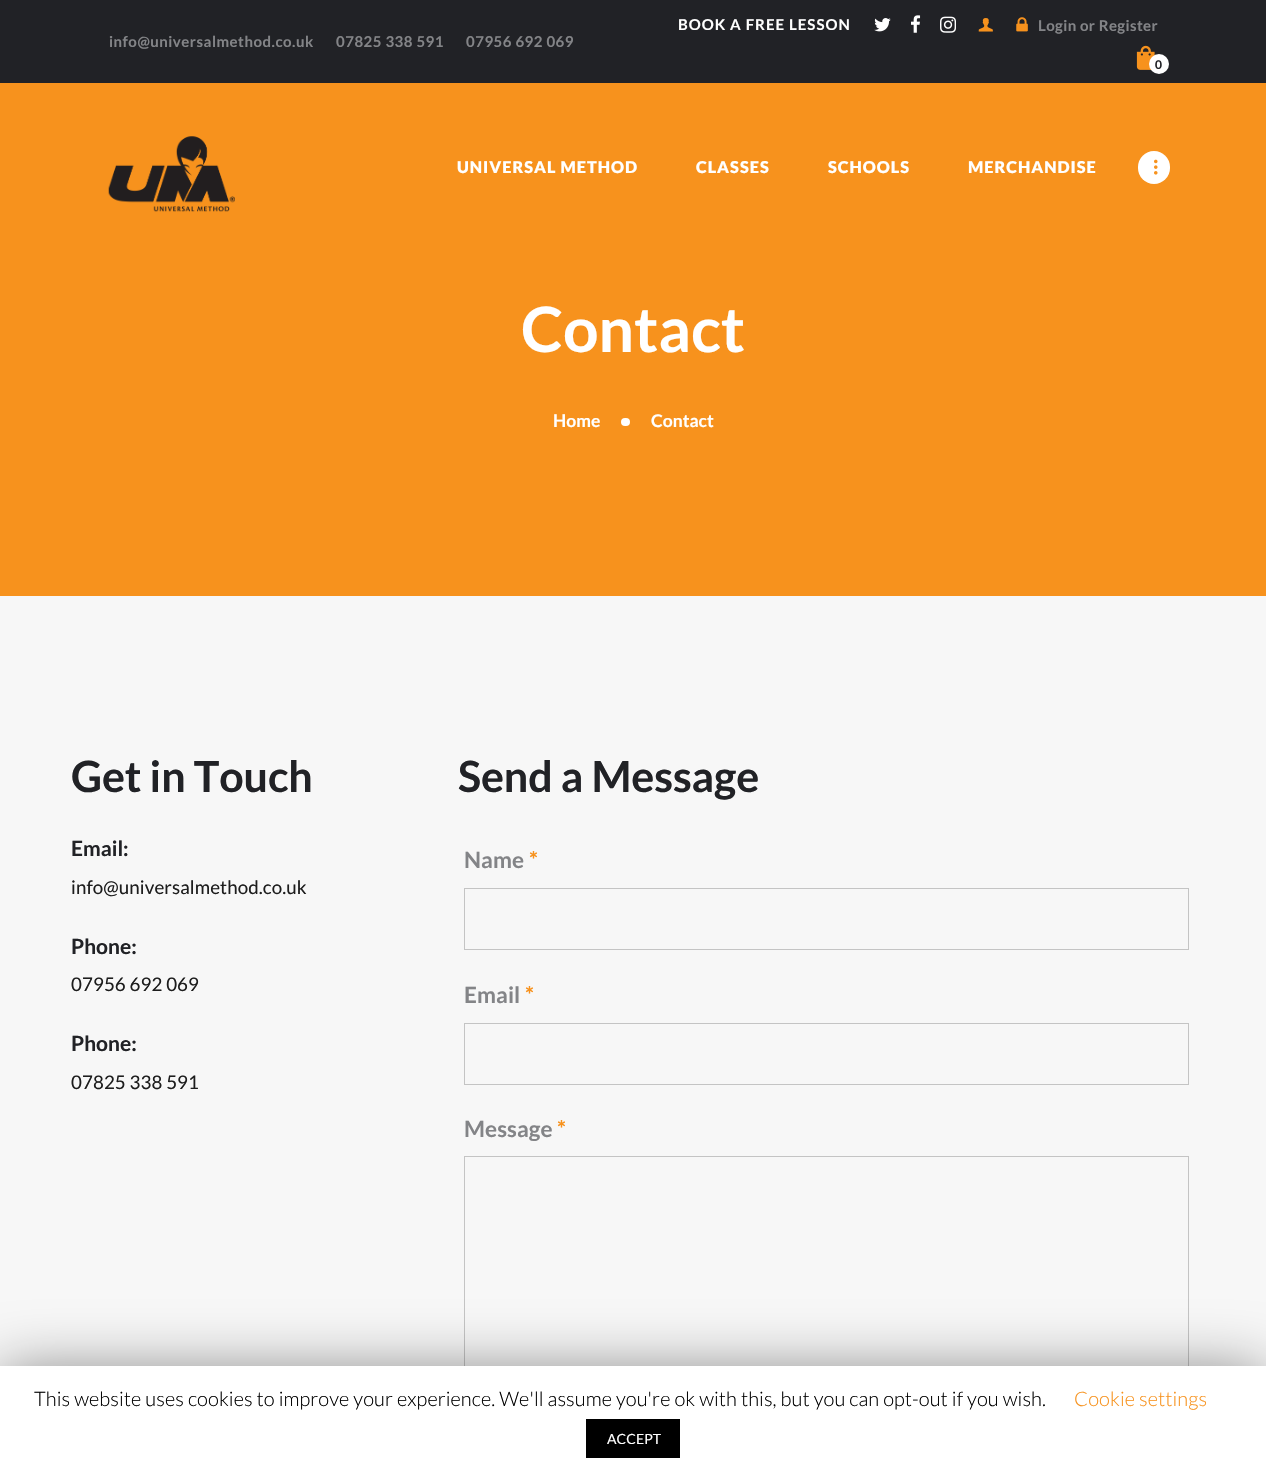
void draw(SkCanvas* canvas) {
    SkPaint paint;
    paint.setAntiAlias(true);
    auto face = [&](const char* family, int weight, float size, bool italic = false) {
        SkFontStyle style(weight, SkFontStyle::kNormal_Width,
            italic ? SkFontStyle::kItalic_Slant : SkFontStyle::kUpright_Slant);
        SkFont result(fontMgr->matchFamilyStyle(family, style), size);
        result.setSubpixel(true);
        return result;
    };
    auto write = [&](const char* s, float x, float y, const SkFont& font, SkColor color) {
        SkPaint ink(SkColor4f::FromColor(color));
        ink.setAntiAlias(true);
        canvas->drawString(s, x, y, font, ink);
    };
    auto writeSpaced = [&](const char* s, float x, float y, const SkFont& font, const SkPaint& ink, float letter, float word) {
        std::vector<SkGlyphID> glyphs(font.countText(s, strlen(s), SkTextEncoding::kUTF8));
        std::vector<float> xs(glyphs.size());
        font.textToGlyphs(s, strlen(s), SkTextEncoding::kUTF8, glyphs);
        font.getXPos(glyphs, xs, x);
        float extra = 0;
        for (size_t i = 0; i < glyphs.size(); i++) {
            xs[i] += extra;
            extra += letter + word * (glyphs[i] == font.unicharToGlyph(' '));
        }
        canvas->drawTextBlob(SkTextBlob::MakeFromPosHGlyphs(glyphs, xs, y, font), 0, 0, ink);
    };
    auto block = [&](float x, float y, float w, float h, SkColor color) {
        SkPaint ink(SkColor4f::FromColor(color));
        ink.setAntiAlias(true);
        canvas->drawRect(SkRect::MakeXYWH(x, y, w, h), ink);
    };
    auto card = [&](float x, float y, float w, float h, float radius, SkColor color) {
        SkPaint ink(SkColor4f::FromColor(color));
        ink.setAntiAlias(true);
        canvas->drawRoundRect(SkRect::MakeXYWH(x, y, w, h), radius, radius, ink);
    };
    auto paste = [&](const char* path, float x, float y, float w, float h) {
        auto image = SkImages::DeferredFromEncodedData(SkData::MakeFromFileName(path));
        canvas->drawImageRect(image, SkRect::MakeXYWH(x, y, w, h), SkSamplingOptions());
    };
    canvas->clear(SkColorSetRGB(247, 247, 247));
    block(0, 0, 1266, 83, SkColorSetRGB(33, 34, 38));
    auto kFont1 = face("Lato", 700, 15);
    paint.setColor(SkColorSetRGB(131, 132, 135));
    writeSpaced("info@universalmethod.co.uk", 109, 47, kFont1, paint, 0.5f, 0);
    writeSpaced("07825 338 591", 336, 47, kFont1, paint, 0.5f, 0);
    writeSpaced("07956 692 069", 466, 47, kFont1, paint, 0.5f, 0);
    paint.setColor(SK_ColorWHITE);
    writeSpaced("BOOK A FREE LESSON", 678, 30, kFont1, paint, 1, 0);
    paste("pic1.png", 874, 18, 17, 14);
    paste("pic2.png", 911, 15, 10, 18);
    paste("pic3.png", 940, 16, 16, 17);
    paste("pic4.png", 978, 18, 15, 14);
    paste("pic5.png", 1016, 17, 12, 15);
    paint.setColor(SkColorSetRGB(131, 132, 135));
    writeSpaced("Login or Register", 1038, 31, kFont1, paint, 0.4f, 0);
    paste("pic6.png", 1136, 45, 19, 25);
    paint.setColor(SK_ColorWHITE);
    canvas->drawCircle(1159, 64, 10, paint);
    auto kFont2 = face("Lato", 700, 12);
    paint.setColor(SkColorSetRGB(33, 34, 38));
    writeSpaced("0", 1155, 69, kFont2, paint, 0.4f, 0);
    block(0, 83, 1266, 513, SkColorSetRGB(247, 146, 29));
    paste("pic7.png", 108, 136, 127, 76);
    auto kFont3 = face("Lato", 900, 16.25f);
    paint.setColor(SK_ColorWHITE);
    writeSpaced("UNIVERSAL METHOD", 457, 173, kFont3, paint, 1, 0);
    writeSpaced("CLASSES", 696, 173, kFont3, paint, 1, 0);
    writeSpaced("SCHOOLS", 828, 173, kFont3, paint, 1, 0);
    writeSpaced("MERCHANDISE", 968, 173, kFont3, paint, 1, 0);
    card(1138, 151, 32, 33, 16, SK_ColorWHITE);
    paste("pic8.png", 1154, 159, 4, 16);
    auto kFont4 = face("Lato", 700, 62.5f);
    write("Contact", 521, 352, kFont4, SK_ColorWHITE);
    auto kFont5 = face("Lato", 700, 17.5f);
    write("Home", 553, 427, kFont5, SK_ColorWHITE);
    card(621, 418, 9, 8, 4, SK_ColorWHITE);
    write("Contact", 651, 427, kFont5, SK_ColorWHITE);
    auto kFont6 = face("Lato", 700, 43);
    paint.setColor(SkColorSetRGB(33, 34, 38));
    writeSpaced("Get in Touch", 71, 792, kFont6, paint, -0.1f, 0);
    auto kFont7 = face("Lato", 700, 21);
    write("Email:", 71, 856, kFont7, SkColorSetRGB(33, 34, 38));
    auto kFont8 = face("Lato", 400, 18.75f);
    paint.setColor(SkColorSetRGB(29, 29, 29));
    writeSpaced("info@universalmethod.co.uk", 71, 894, kFont8, paint, 0.09f, 0);
    write("Phone:", 71, 954, kFont7, SkColorSetRGB(33, 34, 38));
    writeSpaced("07956 692 069", 71, 991, kFont8, paint, 0.09f, 0);
    write("Phone:", 71, 1051, kFont7, SkColorSetRGB(33, 34, 38));
    writeSpaced("07825 338 591", 71, 1089, kFont8, paint, 0.09f, 0);
    paint.setColor(SkColorSetRGB(33, 34, 38));
    writeSpaced("Send a Message", 458, 792, kFont6, paint, -0.1f, 0);
    auto kFont9 = face("Lato", 700, 22.5f);
    paint.setColor(SkColorSetRGB(131, 132, 135));
    writeSpaced("Name", 464, 868, kFont9, paint, 0.09f, 0);
    paint.setColor(SkColorSetRGB(247, 146, 29));
    writeSpaced("*", 529, 868, kFont9, paint, 0.09f, 0);
    paint.setStyle(SkPaint::kStroke_Style);
    paint.setStrokeWidth(1);
    paint.setColor(SkColorSetRGB(196, 196, 196));
    canvas->drawRect(SkRect::MakeXYWH(464.5f, 888.5f, 724, 61), paint);
    paint.setStyle(SkPaint::kFill_Style);
    paint.setColor(SkColorSetRGB(131, 132, 135));
    writeSpaced("Email", 464, 1003, kFont9, paint, 0.09f, 0);
    paint.setColor(SkColorSetRGB(247, 146, 29));
    writeSpaced("*", 525, 1003, kFont9, paint, 0.09f, 0);
    paint.setStyle(SkPaint::kStroke_Style);
    paint.setColor(SkColorSetRGB(196, 196, 196));
    canvas->drawRect(SkRect::MakeXYWH(464.5f, 1023.5f, 724, 61), paint);
    paint.setStyle(SkPaint::kFill_Style);
    paint.setColor(SkColorSetRGB(131, 132, 135));
    writeSpaced("Message", 464, 1137, kFont9, paint, 0.09f, 0);
    paint.setColor(SkColorSetRGB(247, 146, 29));
    writeSpaced("*", 557, 1137, kFont9, paint, 0.09f, 0);
    paint.setStyle(SkPaint::kStroke_Style);
    paint.setColor(SkColorSetRGB(196, 196, 196));
    canvas->drawRect(SkRect::MakeXYWH(464.5f, 1156.5f, 724, 249), paint);
    paint.setStyle(SkPaint::kFill_Style);
    paint.setColor(SkColorSetARGB(128, 0, 0, 0));
    paint.setMaskFilter(SkMaskFilter::MakeBlur(kNormal_SkBlurStyle, 31));
    canvas->drawRect(SkRect::MakeXYWH(0, 1373, 1266, 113), paint);
    paint.setMaskFilter(nullptr);
    block(0, 1366, 1266, 113, SK_ColorWHITE);
    auto kFont10 = face("Lato", 300, 20);
    paint.setColor(SK_ColorBLACK);
    writeSpaced("This website uses cookies to improve your experience. We'll assume you're ok with this, but you can opt-out if you wish.", 34, 1406, kFont10, paint, 0.09f, 0);
    paint.setColor(SkColorSetRGB(247, 146, 29));
    writeSpaced("Cookie settings", 1074, 1406, kFont10, paint, 0.09f, 0);
    block(586, 1419, 94, 39, SK_ColorBLACK);
    auto kFont11 = face("Lato", 400, 14);
    paint.setColor(SK_ColorWHITE);
    writeSpaced("ACCEPT", 607, 1444, kFont11, paint, 0.09f, 0);
}
